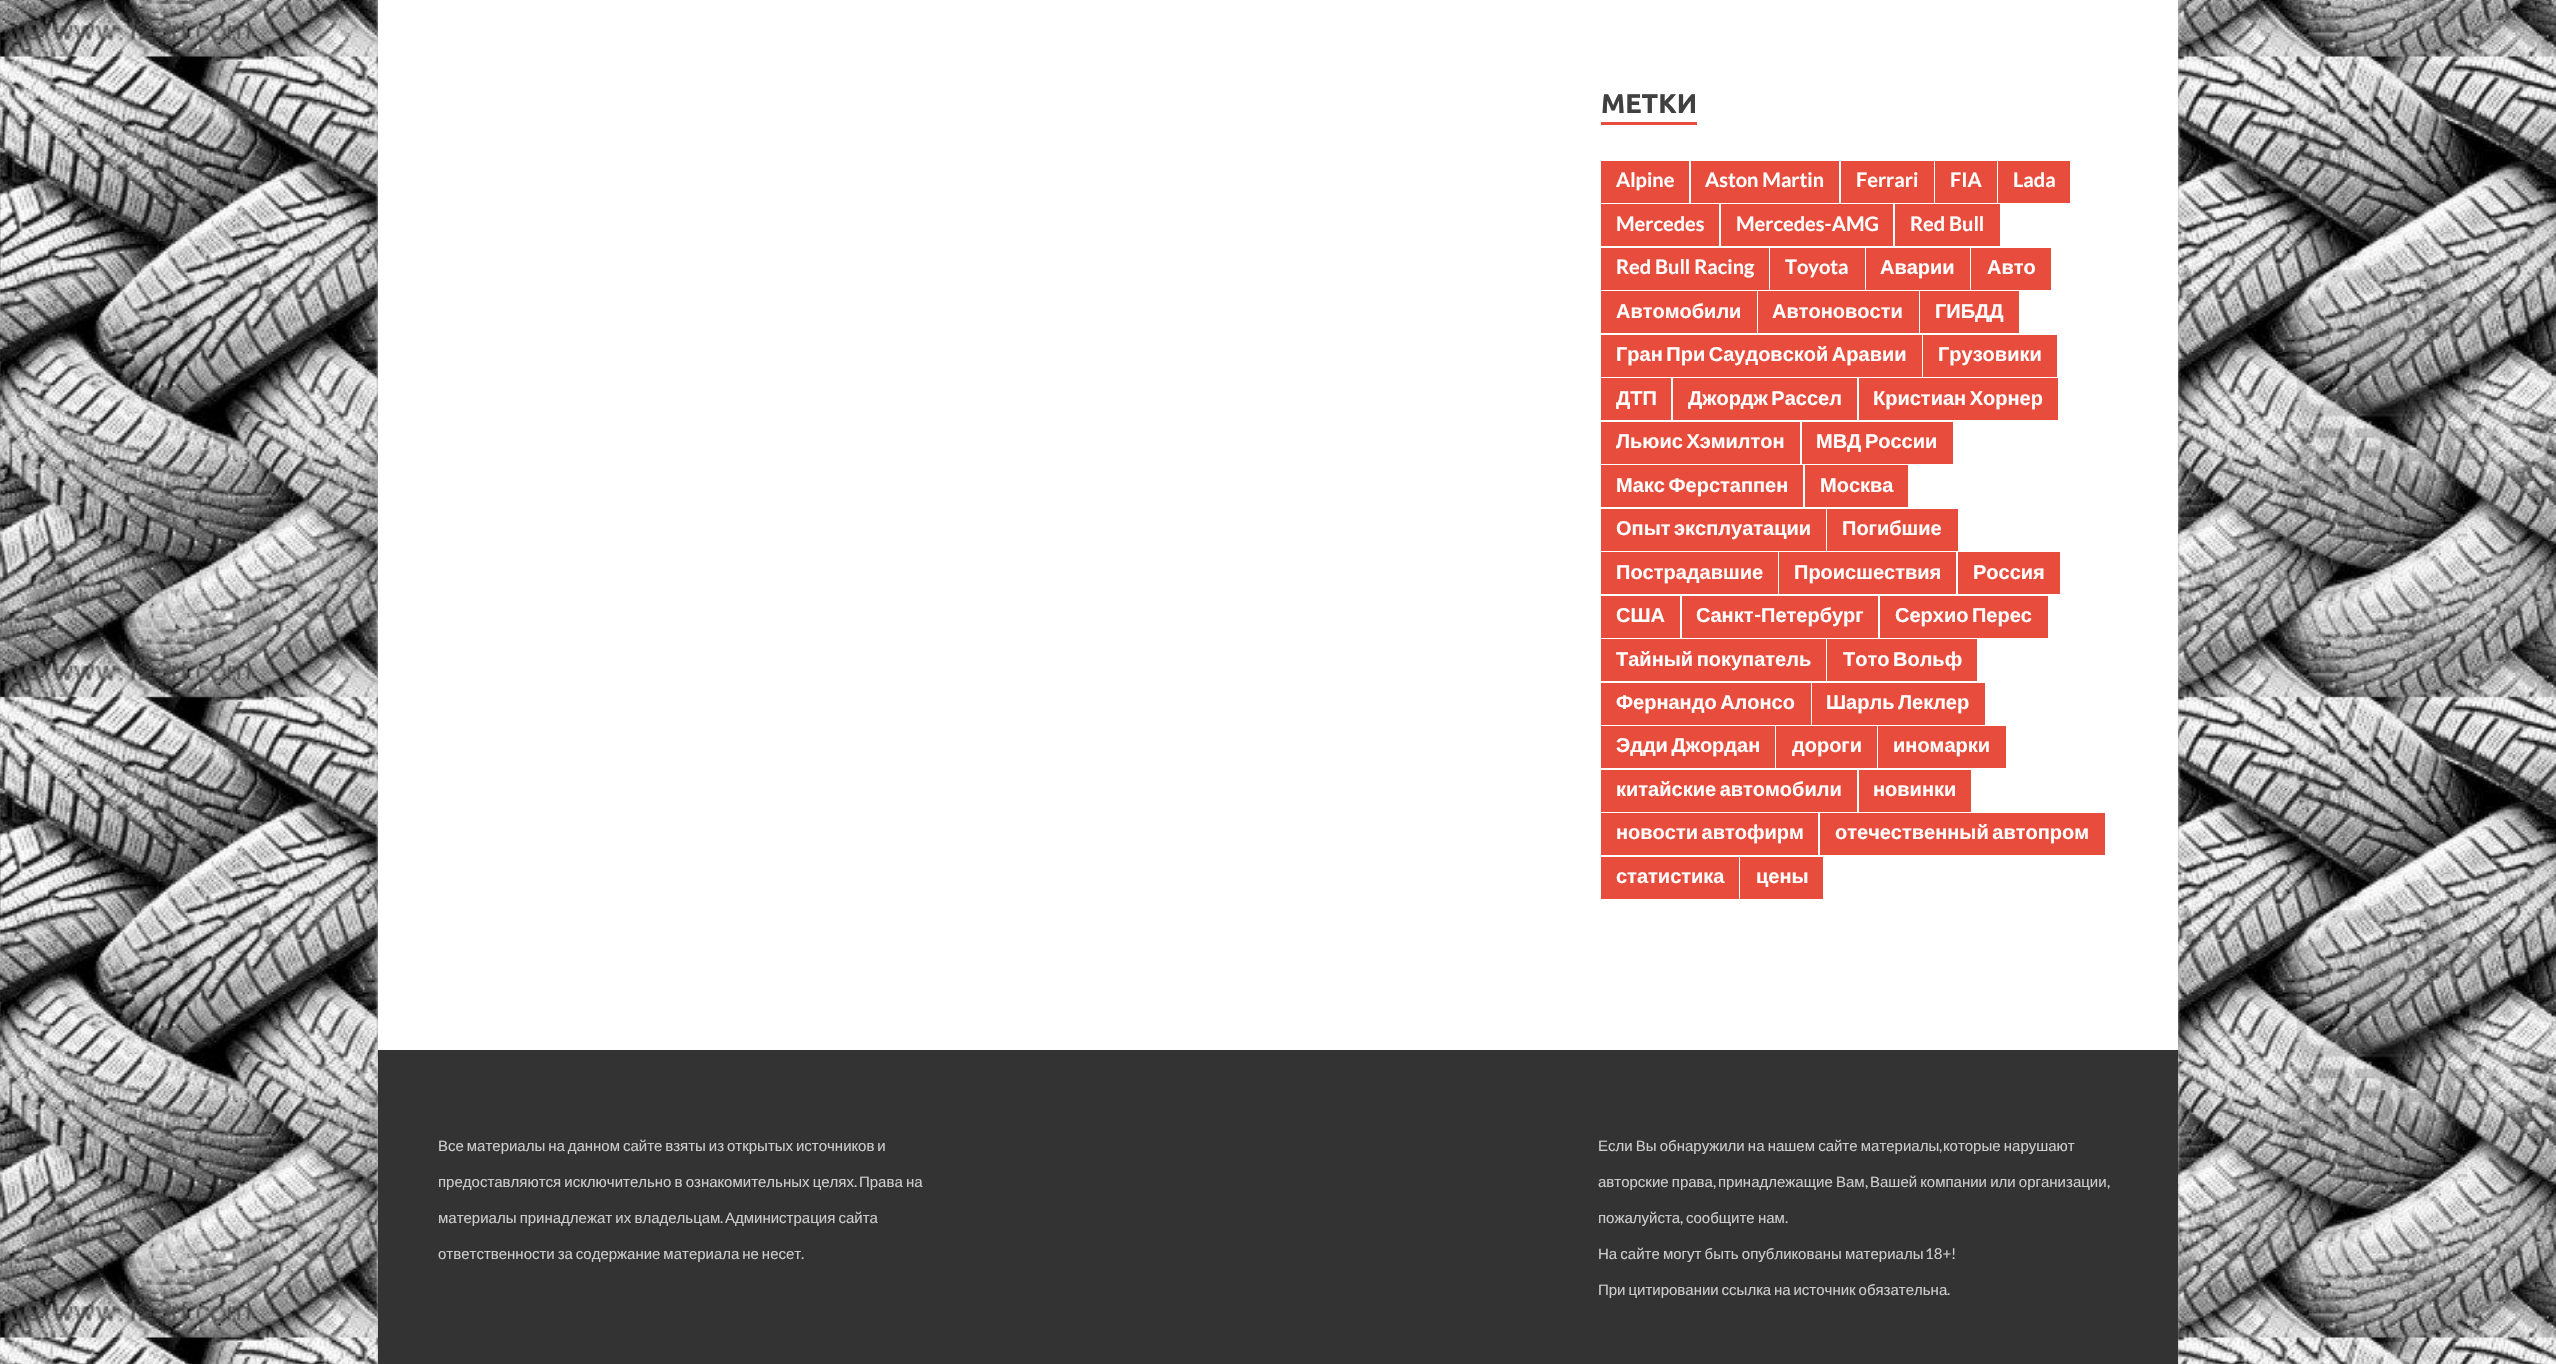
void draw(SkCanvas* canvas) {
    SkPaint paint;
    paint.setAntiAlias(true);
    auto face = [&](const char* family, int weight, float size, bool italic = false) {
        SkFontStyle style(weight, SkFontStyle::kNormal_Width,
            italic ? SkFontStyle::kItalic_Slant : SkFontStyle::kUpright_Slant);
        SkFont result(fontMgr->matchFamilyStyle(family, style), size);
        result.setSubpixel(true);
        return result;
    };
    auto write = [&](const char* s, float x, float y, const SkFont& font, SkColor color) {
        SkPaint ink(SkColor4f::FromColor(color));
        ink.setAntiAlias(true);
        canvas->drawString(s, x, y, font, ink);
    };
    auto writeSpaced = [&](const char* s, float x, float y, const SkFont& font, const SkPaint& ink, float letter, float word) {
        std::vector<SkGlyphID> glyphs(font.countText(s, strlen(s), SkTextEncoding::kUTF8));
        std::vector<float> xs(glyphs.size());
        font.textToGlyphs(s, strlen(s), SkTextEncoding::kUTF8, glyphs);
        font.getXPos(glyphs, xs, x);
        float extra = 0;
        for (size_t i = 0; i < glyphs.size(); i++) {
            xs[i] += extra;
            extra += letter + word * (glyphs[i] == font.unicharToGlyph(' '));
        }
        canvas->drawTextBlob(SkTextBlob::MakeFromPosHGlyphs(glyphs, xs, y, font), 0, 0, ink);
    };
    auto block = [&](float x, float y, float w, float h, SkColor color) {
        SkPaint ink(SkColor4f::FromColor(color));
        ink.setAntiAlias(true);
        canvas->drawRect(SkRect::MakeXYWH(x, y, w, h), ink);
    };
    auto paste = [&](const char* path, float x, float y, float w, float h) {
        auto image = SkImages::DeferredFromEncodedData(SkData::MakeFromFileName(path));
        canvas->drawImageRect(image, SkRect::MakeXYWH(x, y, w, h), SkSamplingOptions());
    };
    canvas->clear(SK_ColorWHITE);
    paste("pic1.png", 0, 0, 2556, 1364);
    paint.setColor(SkColorSetRGB(187, 187, 187));
    paint.setMaskFilter(SkMaskFilter::MakeBlur(kNormal_SkBlurStyle, 1.5f));
    canvas->drawRect(SkRect::MakeXYWH(378, -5, 1800, 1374), paint);
    paint.setMaskFilter(nullptr);
    block(378, 0, 1800, 1050, SK_ColorWHITE);
    block(1601, 122, 96, 3, SkColorSetRGB(231, 76, 60));
    auto kFont1 = face("Ubuntu", 700, 27);
    write("МЕТКИ", 1601, 113, kFont1, SkColorSetRGB(64, 64, 64));
    block(1601, 161, 88, 42, SkColorSetRGB(231, 76, 60));
    auto kFont2 = face("Lato", 700, 20);
    write("Alpine", 1616, 187, kFont2, SK_ColorWHITE);
    block(1691, 161, 148, 42, SkColorSetRGB(231, 76, 60));
    write("Aston Martin", 1705, 187, kFont2, SK_ColorWHITE);
    block(1841, 161, 93, 42, SkColorSetRGB(231, 76, 60));
    write("Ferrari", 1856, 187, kFont2, SK_ColorWHITE);
    block(1935, 161, 62, 42, SkColorSetRGB(231, 76, 60));
    write("FIA", 1950, 187, kFont2, SK_ColorWHITE);
    block(1998, 161, 72, 42, SkColorSetRGB(231, 76, 60));
    write("Lada", 2013, 187, kFont2, SK_ColorWHITE);
    block(1601, 204, 118, 42, SkColorSetRGB(231, 76, 60));
    write("Mercedes", 1616, 231, kFont2, SK_ColorWHITE);
    block(1721, 204, 172, 42, SkColorSetRGB(231, 76, 60));
    write("Mercedes-AMG", 1736, 231, kFont2, SK_ColorWHITE);
    block(1895, 204, 105, 42, SkColorSetRGB(231, 76, 60));
    write("Red Bull", 1910, 231, kFont2, SK_ColorWHITE);
    block(1601, 248, 168, 42, SkColorSetRGB(231, 76, 60));
    write("Red Bull Racing", 1616, 274, kFont2, SK_ColorWHITE);
    block(1770, 248, 95, 42, SkColorSetRGB(231, 76, 60));
    write("Toyota", 1785, 274, kFont2, SK_ColorWHITE);
    block(1866, 248, 104, 42, SkColorSetRGB(231, 76, 60));
    auto kFont3 = face("Liberation Sans", 700, 20);
    write("Аварии", 1880, 274, kFont3, SK_ColorWHITE);
    block(1971, 248, 80, 42, SkColorSetRGB(231, 76, 60));
    write("Авто", 1987, 274, kFont3, SK_ColorWHITE);
    block(1601, 291, 156, 42, SkColorSetRGB(231, 76, 60));
    write("Автомобили", 1616, 318, kFont3, SK_ColorWHITE);
    block(1758, 291, 161, 42, SkColorSetRGB(231, 76, 60));
    write("Автоновости", 1772, 318, kFont3, SK_ColorWHITE);
    block(1920, 291, 99, 42, SkColorSetRGB(231, 76, 60));
    write("ГИБДД", 1935, 318, kFont3, SK_ColorWHITE);
    block(1601, 335, 321, 42, SkColorSetRGB(231, 76, 60));
    paint.setColor(SK_ColorWHITE);
    writeSpaced("Гран При Саудовской Аравии", 1616, 361, kFont3, paint, 0, -2);
    block(1923, 335, 134, 42, SkColorSetRGB(231, 76, 60));
    write("Грузовики", 1938, 361, kFont3, SK_ColorWHITE);
    block(1601, 378, 70, 42, SkColorSetRGB(231, 76, 60));
    write("ДТП", 1616, 405, kFont3, SK_ColorWHITE);
    block(1673, 378, 184, 42, SkColorSetRGB(231, 76, 60));
    writeSpaced("Джордж Рассел", 1688, 405, kFont3, paint, 0, -2);
    block(1859, 378, 199, 42, SkColorSetRGB(231, 76, 60));
    writeSpaced("Кристиан Хорнер", 1873, 405, kFont3, paint, 0, -2);
    block(1601, 422, 199, 42, SkColorSetRGB(231, 76, 60));
    writeSpaced("Льюис Хэмилтон", 1616, 448, kFont3, paint, 0, -2);
    block(1802, 422, 151, 42, SkColorSetRGB(231, 76, 60));
    writeSpaced("МВД России", 1816, 448, kFont3, paint, 0, -2);
    block(1601, 465, 202, 42, SkColorSetRGB(231, 76, 60));
    writeSpaced("Макс Ферстаппен", 1616, 492, kFont3, paint, 0, -2);
    block(1805, 465, 103, 42, SkColorSetRGB(231, 76, 60));
    write("Москва", 1820, 492, kFont3, SK_ColorWHITE);
    block(1601, 509, 225, 42, SkColorSetRGB(231, 76, 60));
    writeSpaced("Опыт эксплуатации", 1616, 535, kFont3, paint, 0, -2);
    block(1827, 509, 131, 42, SkColorSetRGB(231, 76, 60));
    write("Погибшие", 1842, 535, kFont3, SK_ColorWHITE);
    block(1601, 552, 177, 42, SkColorSetRGB(231, 76, 60));
    write("Пострадавшие", 1616, 579, kFont3, SK_ColorWHITE);
    block(1779, 552, 177, 42, SkColorSetRGB(231, 76, 60));
    write("Происшествия", 1794, 579, kFont3, SK_ColorWHITE);
    block(1958, 552, 102, 42, SkColorSetRGB(231, 76, 60));
    write("Россия", 1973, 579, kFont3, SK_ColorWHITE);
    block(1601, 596, 79, 42, SkColorSetRGB(231, 76, 60));
    write("США", 1616, 622, kFont3, SK_ColorWHITE);
    block(1682, 596, 196, 42, SkColorSetRGB(231, 76, 60));
    write("Санкт", 1696, 622, kFont3, SK_ColorWHITE);
    write("-", 1754, 622, kFont2, SK_ColorWHITE);
    write("Петербург", 1761, 622, kFont3, SK_ColorWHITE);
    block(1880, 596, 168, 42, SkColorSetRGB(231, 76, 60));
    writeSpaced("Серхио Перес", 1895, 622, kFont3, paint, 0, -2);
    block(1601, 639, 225, 42, SkColorSetRGB(231, 76, 60));
    writeSpaced("Тайный покупатель", 1616, 666, kFont3, paint, 0, -2);
    block(1827, 639, 150, 42, SkColorSetRGB(231, 76, 60));
    writeSpaced("Тото Вольф", 1843, 666, kFont3, paint, 0, -2);
    block(1601, 683, 210, 42, SkColorSetRGB(231, 76, 60));
    writeSpaced("Фернандо Алонсо", 1616, 709, kFont3, paint, 0, -2);
    block(1812, 683, 173, 42, SkColorSetRGB(231, 76, 60));
    writeSpaced("Шарль Леклер", 1826, 709, kFont3, paint, 0, -2);
    block(1601, 726, 174, 42, SkColorSetRGB(231, 76, 60));
    writeSpaced("Эдди Джордан", 1616, 752, kFont3, paint, 0, -2);
    block(1776, 726, 101, 42, SkColorSetRGB(231, 76, 60));
    write("дороги", 1792, 752, kFont3, SK_ColorWHITE);
    block(1878, 726, 128, 42, SkColorSetRGB(231, 76, 60));
    write("иномарки", 1893, 752, kFont3, SK_ColorWHITE);
    block(1601, 770, 256, 42, SkColorSetRGB(231, 76, 60));
    writeSpaced("китайские автомобили", 1616, 796, kFont3, paint, 0, -2);
    block(1859, 770, 112, 42, SkColorSetRGB(231, 76, 60));
    write("новинки", 1873, 796, kFont3, SK_ColorWHITE);
    block(1601, 813, 217, 42, SkColorSetRGB(231, 76, 60));
    writeSpaced("новости автофирм", 1616, 839, kFont3, paint, 0, -2);
    block(1820, 813, 285, 42, SkColorSetRGB(231, 76, 60));
    writeSpaced("отечественный автопром", 1835, 839, kFont3, paint, 0, -2);
    block(1601, 857, 138, 42, SkColorSetRGB(231, 76, 60));
    write("статистика", 1616, 883, kFont3, SK_ColorWHITE);
    block(1740, 857, 83, 42, SkColorSetRGB(231, 76, 60));
    write("цены", 1756, 883, kFont3, SK_ColorWHITE);
    block(378, 1050, 1800, 314, SkColorSetRGB(51, 51, 51));
    auto kFont4 = face("Liberation Sans", 400, 15);
    paint.setColor(SkColorSetRGB(204, 204, 204));
    writeSpaced("Все материалы на данном сайте взяты из открытых источников и", 438, 1151, kFont4, paint, 0, -1.25f);
    writeSpaced("предоставляются исключительно в ознакомительных целях", 438, 1187, kFont4, paint, 0, -1);
    auto kFont5 = face("Lato", 400, 15);
    write(".", 854, 1187, kFont5, SkColorSetRGB(204, 204, 204));
    writeSpaced("Права на", 859, 1187, kFont4, paint, 0, -1);
    writeSpaced("материалы принадлежат их владельцам", 438, 1223, kFont4, paint, 0, -1);
    write(".", 720, 1223, kFont5, SkColorSetRGB(204, 204, 204));
    writeSpaced("Администрация сайта", 725, 1223, kFont4, paint, 0, -1);
    writeSpaced("ответственности за содержание материала не несет", 438, 1259, kFont4, paint, 0, -1.25f);
    write(".", 801, 1259, kFont5, SkColorSetRGB(204, 204, 204));
    writeSpaced("Если Вы обнаружили на нашем сайте материалы", 1598, 1151, kFont4, paint, 0, -1);
    write(",", 1939, 1151, kFont5, SkColorSetRGB(204, 204, 204));
    writeSpaced("которые нарушают", 1943, 1151, kFont4, paint, 0, -1);
    writeSpaced("авторские права", 1598, 1187, kFont4, paint, 0, -1);
    write(",", 1713, 1187, kFont5, SkColorSetRGB(204, 204, 204));
    writeSpaced("принадлежащие Вам", 1718, 1187, kFont4, paint, 0, -1);
    write(",", 1865, 1187, kFont5, SkColorSetRGB(204, 204, 204));
    writeSpaced("Вашей компании или организации", 1870, 1187, kFont4, paint, 0, -1);
    write(",", 2107, 1187, kFont5, SkColorSetRGB(204, 204, 204));
    write("пожалуйста", 1598, 1223, kFont4, SkColorSetRGB(204, 204, 204));
    write(",", 1680, 1223, kFont5, SkColorSetRGB(204, 204, 204));
    writeSpaced("сообщите нам", 1686, 1223, kFont4, paint, 0, -1);
    write(".", 1785, 1223, kFont5, SkColorSetRGB(204, 204, 204));
    writeSpaced("На сайте могут быть опубликованы материалы", 1598, 1259, kFont4, paint, 0, -1);
    write("18+!", 1925, 1259, kFont5, SkColorSetRGB(204, 204, 204));
    writeSpaced("При цитировании ссылка на источник обязательна", 1598, 1295, kFont4, paint, 0, -1.25f);
    write(".", 1947, 1295, kFont5, SkColorSetRGB(204, 204, 204));
}
